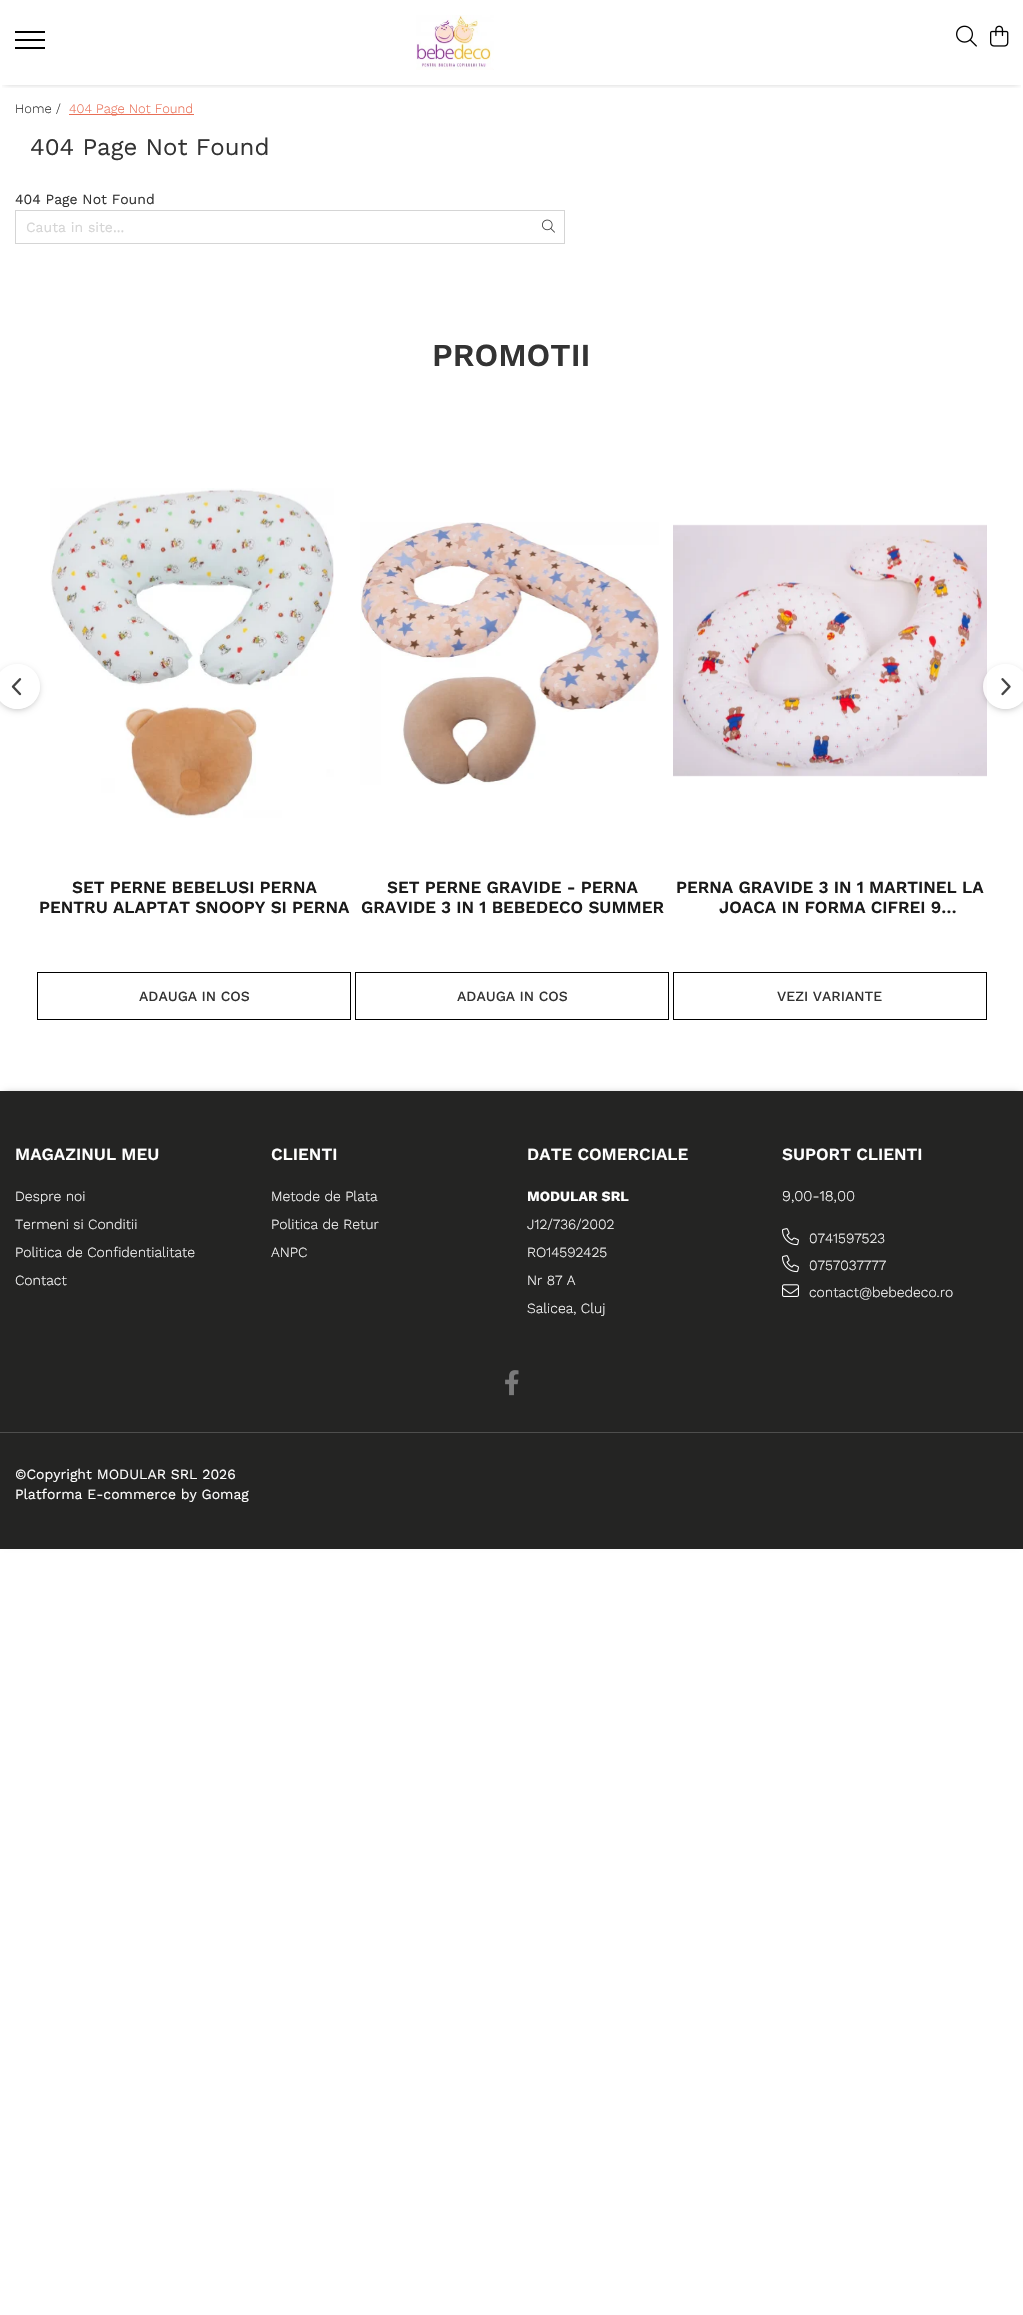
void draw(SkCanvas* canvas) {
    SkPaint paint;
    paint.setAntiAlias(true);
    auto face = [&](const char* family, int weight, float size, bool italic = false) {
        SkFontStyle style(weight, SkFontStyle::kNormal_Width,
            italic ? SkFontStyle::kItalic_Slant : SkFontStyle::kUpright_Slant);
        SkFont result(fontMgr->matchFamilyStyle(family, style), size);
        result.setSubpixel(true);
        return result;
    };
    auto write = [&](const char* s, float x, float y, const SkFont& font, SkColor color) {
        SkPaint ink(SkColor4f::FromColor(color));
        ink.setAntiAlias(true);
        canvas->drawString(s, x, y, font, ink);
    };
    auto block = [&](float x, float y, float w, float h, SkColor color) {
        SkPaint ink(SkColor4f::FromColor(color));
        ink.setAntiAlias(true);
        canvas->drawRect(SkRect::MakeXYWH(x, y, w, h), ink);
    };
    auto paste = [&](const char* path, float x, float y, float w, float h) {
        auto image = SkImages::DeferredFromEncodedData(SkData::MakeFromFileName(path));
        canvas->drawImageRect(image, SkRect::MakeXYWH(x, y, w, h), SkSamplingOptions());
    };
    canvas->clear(SK_ColorWHITE);
    canvas->save();
    canvas->clipRect(SkRect::MakeXYWH(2, 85, 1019, 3));
    paint.setColor(SkColorSetARGB(77, 0, 0, 0));
    paint.setMaskFilter(SkMaskFilter::MakeBlur(kNormal_SkBlurStyle, 3.5f));
    canvas->drawRect(SkRect::MakeXYWH(4, 6, 1015, 77), paint);
    paint.setMaskFilter(nullptr);
    canvas->restore();
    block(15, 39, 30, 2, SK_ColorBLACK);
    block(15, 31, 30, 2, SK_ColorBLACK);
    block(15, 47, 30, 2, SK_ColorBLACK);
    paste("pic1.png", 416, 15, 78, 55);
    paste("pic2.png", 956, 25, 21, 22);
    paste("pic3.png", 990, 25, 19, 22);
    auto kFont1 = face("Work Sans", 300, 13);
    write("Home /", 15, 113, kFont1, SkColorSetRGB(51, 51, 51));
    block(69, 114, 125, 1, SkColorSetRGB(233, 111, 86));
    write("404 Page Not Found", 69, 113, kFont1, SkColorSetRGB(233, 111, 86));
    auto kFont2 = face("Work Sans", 400, 24);
    write("404 Page Not Found", 30, 155, kFont2, SkColorSetRGB(51, 51, 51));
    auto kFont3 = face("Work Sans", 400, 14);
    write("404 Page Not Found", 15, 204, kFont3, SkColorSetRGB(51, 51, 51));
    paint.setStyle(SkPaint::kStroke_Style);
    paint.setStrokeWidth(1);
    paint.setColor(SkColorSetRGB(213, 213, 213));
    canvas->drawRect(SkRect::MakeXYWH(15.5f, 210.5f, 549, 33), paint);
    write("Cauta in site...", 26, 232, kFont3, SkColorSetRGB(213, 213, 213));
    paste("pic4.png", 542, 219, 13, 14);
    auto kFont4 = face("Work Sans", 600, 32);
    write("PROMOTII", 432, 366, kFont4, SkColorSetRGB(51, 51, 51));
    canvas->save();
    canvas->clipPath(SkPathBuilder(SkPathFillType::kEvenOdd).moveTo(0, 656).lineTo(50, 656).lineTo(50, 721).lineTo(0, 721).close().moveTo(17.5f, 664).cubicTo(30, 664, 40, 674, 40, 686.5f).cubicTo(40, 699, 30, 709, 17.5f, 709).cubicTo(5, 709, -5, 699, -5, 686.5f).cubicTo(-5, 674, 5, 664, 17.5f, 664).close().detach(), true);
    paint.setStyle(SkPaint::kFill_Style);
    paint.setColor(SkColorSetARGB(77, 0, 0, 0));
    paint.setMaskFilter(SkMaskFilter::MakeBlur(kNormal_SkBlurStyle, 3.5f));
    canvas->drawRoundRect(SkRect::MakeXYWH(-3, 668, 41, 41), 20.5f, 20.5f, paint);
    paint.setMaskFilter(nullptr);
    canvas->restore();
    paint.setColor(SkColorSetARGB(217, 255, 255, 255));
    canvas->drawCircle(17.5f, 686.5f, 22.5f, paint);
    paste("pic5.png", 11, 678, 11, 18);
    paste("pic9.png", 673, 524, 314, 253);
    canvas->save();
    canvas->clipPath(SkPathBuilder(SkPathFillType::kEvenOdd).moveTo(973, 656).lineTo(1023, 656).lineTo(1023, 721).lineTo(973, 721).close().moveTo(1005.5f, 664).cubicTo(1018, 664, 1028, 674, 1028, 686.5f).cubicTo(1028, 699, 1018, 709, 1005.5f, 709).cubicTo(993, 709, 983, 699, 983, 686.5f).cubicTo(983, 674, 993, 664, 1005.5f, 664).close().detach(), true);
    paint.setColor(SkColorSetARGB(77, 0, 0, 0));
    paint.setMaskFilter(SkMaskFilter::MakeBlur(kNormal_SkBlurStyle, 3.5f));
    canvas->drawRoundRect(SkRect::MakeXYWH(985, 668, 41, 41), 20.5f, 20.5f, paint);
    paint.setMaskFilter(nullptr);
    canvas->restore();
    paint.setColor(SkColorSetARGB(217, 255, 255, 255));
    canvas->drawCircle(1005.5f, 686.5f, 22.5f, paint);
    paste("pic6.png", 1001, 678, 10, 18);
    paste("pic7.png", 50, 488, 284, 330);
    auto kFont5 = face("Work Sans", 600, 17);
    write("SET PERNE BEBELUSI PERNA", 72, 893, kFont5, SkColorSetRGB(26, 26, 26));
    write("PENTRU ALAPTAT SNOOPY SI PERNA", 39, 913, kFont5, SkColorSetRGB(26, 26, 26));
    paint.setStyle(SkPaint::kStroke_Style);
    paint.setColor(SK_ColorBLACK);
    canvas->drawRect(SkRect::MakeXYWH(37.5f, 972.5f, 313, 47), paint);
    auto kFont6 = face("Work Sans", 500, 14);
    write("ADAUGA IN COS", 139, 1001, kFont6, SkColorSetRGB(51, 51, 51));
    paste("pic8.png", 360, 522, 299, 263);
    write("SET PERNE GRAVIDE - PERNA", 387, 893, kFont5, SkColorSetRGB(26, 26, 26));
    write("GRAVIDE 3 IN 1 BEBEDECO SUMMER", 361, 913, kFont5, SkColorSetRGB(26, 26, 26));
    canvas->drawRect(SkRect::MakeXYWH(355.5f, 972.5f, 313, 47), paint);
    write("ADAUGA IN COS", 457, 1001, kFont6, SkColorSetRGB(51, 51, 51));
    write("PERNA GRAVIDE 3 IN 1 MARTINEL LA", 676, 893, kFont5, SkColorSetRGB(26, 26, 26));
    write("JOACA IN FORMA CIFREI 9…", 719, 913, kFont5, SkColorSetRGB(26, 26, 26));
    canvas->drawRect(SkRect::MakeXYWH(673.5f, 972.5f, 313, 47), paint);
    write("VEZI VARIANTE", 777, 1001, kFont6, SkColorSetRGB(51, 51, 51));
    paint.setStyle(SkPaint::kFill_Style);
    paint.setColor(SkColorSetARGB(77, 0, 0, 0));
    paint.setMaskFilter(SkMaskFilter::MakeBlur(kNormal_SkBlurStyle, 3.5f));
    canvas->drawRect(SkRect::MakeXYWH(4, 1093, 1015, 450), paint);
    paint.setMaskFilter(nullptr);
    block(0, 1091, 1023, 458, SkColorSetRGB(36, 36, 35));
    write("MAGAZINUL MEU", 15, 1160, kFont5, SK_ColorWHITE);
    auto kFont7 = face("Work Sans", 300, 14);
    write("Despre noi", 15, 1201, kFont7, SK_ColorWHITE);
    write("Termeni si Conditii", 15, 1229, kFont7, SK_ColorWHITE);
    write("Politica de Confidentialitate", 15, 1257, kFont7, SK_ColorWHITE);
    write("Contact", 15, 1285, kFont7, SK_ColorWHITE);
    write("CLIENTI", 271, 1160, kFont5, SK_ColorWHITE);
    write("Metode de Plata", 271, 1201, kFont7, SK_ColorWHITE);
    write("Politica de Retur", 271, 1229, kFont7, SK_ColorWHITE);
    write("ANPC", 271, 1257, kFont7, SK_ColorWHITE);
    write("DATE COMERCIALE", 527, 1160, kFont5, SK_ColorWHITE);
    auto kFont8 = face("Work Sans", 700, 14);
    write("MODULAR SRL", 527, 1201, kFont8, SK_ColorWHITE);
    write("J12/736/2002", 527, 1229, kFont7, SK_ColorWHITE);
    write("RO14592425", 527, 1257, kFont7, SK_ColorWHITE);
    write("Nr 87 A", 527, 1285, kFont7, SK_ColorWHITE);
    write("Salicea, Cluj", 527, 1313, kFont7, SK_ColorWHITE);
    write("SUPORT CLIENTI", 782, 1160, kFont5, SK_ColorWHITE);
    auto kFont9 = face("Work Sans", 300, 15);
    write("9,00-18,00", 782, 1201, kFont9, SK_ColorWHITE);
    paste("pic10.png", 782, 1228, 17, 18);
    write("0741597523", 809, 1243, kFont7, SK_ColorWHITE);
    paste("pic10.png", 782, 1255, 17, 18);
    write("0757037777", 809, 1270, kFont7, SK_ColorWHITE);
    paste("pic11.png", 782, 1284, 17, 13);
    write("contact@bebedeco.ro", 809, 1297, kFont7, SK_ColorWHITE);
    paste("pic12.png", 505, 1370, 14, 26);
    block(0, 1432, 1023, 1, SkColorSetRGB(78, 78, 77));
    write("©Copyright MODULAR SRL 2026", 15, 1479, kFont3, SK_ColorWHITE);
    write("Platforma E-commerce by Gomag", 15, 1499, kFont3, SK_ColorWHITE);
}
